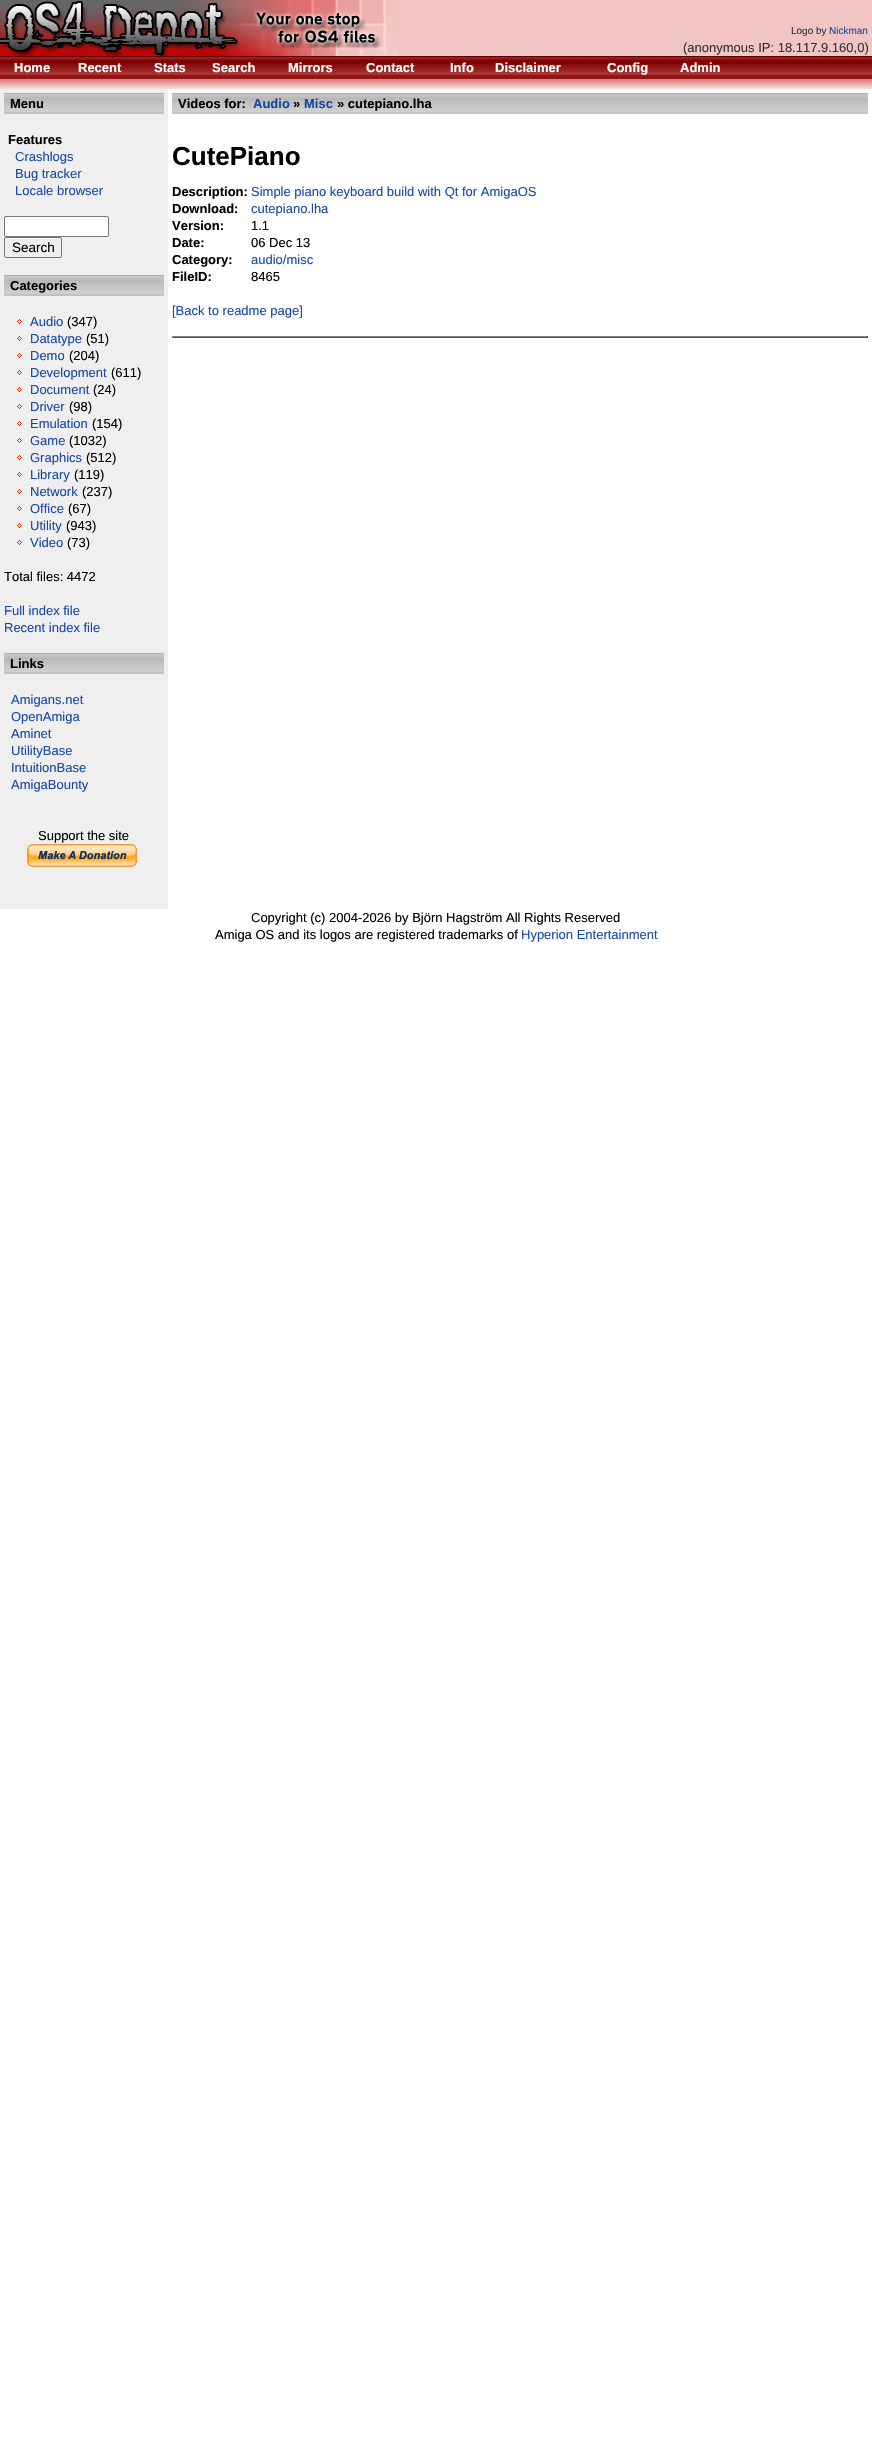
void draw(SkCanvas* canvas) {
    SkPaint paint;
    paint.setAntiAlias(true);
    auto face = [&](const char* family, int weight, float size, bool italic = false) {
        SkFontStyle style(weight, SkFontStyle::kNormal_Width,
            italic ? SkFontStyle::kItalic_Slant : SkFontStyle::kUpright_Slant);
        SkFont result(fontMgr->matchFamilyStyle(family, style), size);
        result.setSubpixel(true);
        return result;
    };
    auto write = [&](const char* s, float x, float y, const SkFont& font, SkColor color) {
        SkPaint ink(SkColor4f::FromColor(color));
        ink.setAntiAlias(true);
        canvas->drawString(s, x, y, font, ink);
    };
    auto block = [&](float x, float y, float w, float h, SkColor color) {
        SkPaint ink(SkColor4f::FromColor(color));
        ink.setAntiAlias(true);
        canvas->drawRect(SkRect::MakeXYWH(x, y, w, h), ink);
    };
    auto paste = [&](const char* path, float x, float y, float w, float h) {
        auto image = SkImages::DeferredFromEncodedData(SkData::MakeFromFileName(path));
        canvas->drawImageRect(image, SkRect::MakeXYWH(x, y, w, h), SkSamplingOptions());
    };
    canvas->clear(SK_ColorWHITE);
    block(398, 0, 474, 56, SkColorSetRGB(241, 197, 196));
    paste("pic1.png", 0, 0, 398, 56);
    auto kFont1 = face("Liberation Sans", 400, 10);
    write("Logo by", 791, 34, kFont1, SkColorSetRGB(51, 51, 51));
    write("Nickman", 829, 34, kFont1, SkColorSetRGB(22, 73, 167));
    auto kFont2 = face("Liberation Sans", 400, 13);
    write("(anonymous IP: 18.117.9.160,0)", 683, 52, kFont2, SkColorSetRGB(51, 51, 51));
    paste("pic2.png", 0, 56, 872, 23);
    auto kFont3 = face("Liberation Sans", 700, 13);
    write("Home", 14, 72, kFont3, SK_ColorWHITE);
    write("Recent", 78, 72, kFont3, SK_ColorWHITE);
    write("Stats", 154, 72, kFont3, SK_ColorWHITE);
    write("Search", 212, 72, kFont3, SK_ColorWHITE);
    write("Mirrors", 288, 72, kFont3, SK_ColorWHITE);
    write("Contact", 366, 72, kFont3, SK_ColorWHITE);
    write("Info", 450, 72, kFont3, SK_ColorWHITE);
    write("Disclaimer", 495, 72, kFont3, SK_ColorWHITE);
    write("Config", 607, 72, kFont3, SK_ColorWHITE);
    write("Admin", 680, 72, kFont3, SK_ColorWHITE);
    block(0, 79, 872, 1, SkColorSetRGB(225, 128, 128));
    paste("pic3.png", 0, 80, 872, 9);
    block(0, 89, 168, 820, SkColorSetRGB(239, 239, 239));
    paste("pic4.png", 4, 93, 160, 21);
    write("Menu", 10, 108, kFont3, SK_ColorBLACK);
    write("Features", 8, 144, kFont3, SK_ColorBLACK);
    write("Crashlogs", 15, 161, kFont2, SkColorSetRGB(22, 73, 167));
    write("Bug tracker", 15, 178, kFont2, SkColorSetRGB(22, 73, 167));
    write("Locale browser", 15, 195, kFont2, SkColorSetRGB(22, 73, 167));
    paint.setColor(SK_ColorWHITE);
    canvas->drawRoundRect(SkRect::MakeXYWH(4.5f, 216.5f, 104, 20), 1.5f, 1.5f, paint);
    paint.setStyle(SkPaint::kStroke_Style);
    paint.setStrokeWidth(1);
    paint.setColor(SkColorSetRGB(118, 118, 118));
    canvas->drawRoundRect(SkRect::MakeXYWH(4.5f, 216.5f, 104, 20), 1.5f, 1.5f, paint);
    canvas->drawRoundRect(SkRect::MakeXYWH(4.5f, 237.5f, 57, 20), 1.5f, 1.5f, paint);
    auto kFont4 = face("Liberation Sans", 400, 13.5f);
    write("Search", 12, 252, kFont4, SK_ColorBLACK);
    paste("pic4.png", 4, 275, 160, 21);
    write("Categories", 10, 290, kFont3, SK_ColorBLACK);
    paste("pic5.png", 17, 319, 5, 5);
    write("Audio", 30, 326, kFont2, SkColorSetRGB(22, 73, 167));
    write("(347)", 67, 326, kFont2, SK_ColorBLACK);
    paste("pic5.png", 17, 336, 5, 5);
    write("Datatype", 30, 343, kFont2, SkColorSetRGB(22, 73, 167));
    write("(51)", 86, 343, kFont2, SK_ColorBLACK);
    paste("pic5.png", 17, 353, 5, 5);
    write("Demo", 30, 360, kFont2, SkColorSetRGB(22, 73, 167));
    write("(204)", 69, 360, kFont2, SK_ColorBLACK);
    paste("pic5.png", 17, 370, 5, 5);
    write("Development", 30, 377, kFont2, SkColorSetRGB(22, 73, 167));
    write("(611)", 111, 377, kFont2, SK_ColorBLACK);
    paste("pic5.png", 17, 387, 5, 5);
    write("Document", 30, 394, kFont2, SkColorSetRGB(22, 73, 167));
    write("(24)", 93, 394, kFont2, SK_ColorBLACK);
    paste("pic5.png", 17, 404, 5, 5);
    write("Driver", 30, 411, kFont2, SkColorSetRGB(22, 73, 167));
    write("(98)", 69, 411, kFont2, SK_ColorBLACK);
    paste("pic5.png", 17, 421, 5, 5);
    write("Emulation", 30, 428, kFont2, SkColorSetRGB(22, 73, 167));
    write("(154)", 92, 428, kFont2, SK_ColorBLACK);
    paste("pic5.png", 17, 438, 5, 5);
    write("Game", 30, 445, kFont2, SkColorSetRGB(22, 73, 167));
    write("(1032)", 69, 445, kFont2, SK_ColorBLACK);
    paste("pic5.png", 17, 455, 5, 5);
    write("Graphics", 30, 462, kFont2, SkColorSetRGB(22, 73, 167));
    write("(512)", 86, 462, kFont2, SK_ColorBLACK);
    paste("pic5.png", 17, 472, 5, 5);
    write("Library", 30, 479, kFont2, SkColorSetRGB(22, 73, 167));
    write("(119)", 74, 479, kFont2, SK_ColorBLACK);
    paste("pic5.png", 17, 489, 5, 5);
    write("Network", 30, 496, kFont2, SkColorSetRGB(22, 73, 167));
    write("(237)", 82, 496, kFont2, SK_ColorBLACK);
    paste("pic5.png", 17, 506, 5, 5);
    write("Office", 30, 513, kFont2, SkColorSetRGB(22, 73, 167));
    write("(67)", 68, 513, kFont2, SK_ColorBLACK);
    paste("pic5.png", 17, 523, 5, 5);
    write("Utility", 30, 530, kFont2, SkColorSetRGB(22, 73, 167));
    write("(943)", 66, 530, kFont2, SK_ColorBLACK);
    paste("pic5.png", 17, 540, 5, 5);
    write("Video", 30, 547, kFont2, SkColorSetRGB(22, 73, 167));
    write("(73)", 67, 547, kFont2, SK_ColorBLACK);
    write("Total files: 4472", 4, 581, kFont2, SK_ColorBLACK);
    write("Full index file", 4, 615, kFont2, SkColorSetRGB(22, 73, 167));
    write("Recent index file", 4, 632, kFont2, SkColorSetRGB(22, 73, 167));
    paste("pic4.png", 4, 653, 160, 21);
    write("Links", 10, 668, kFont3, SK_ColorBLACK);
    write("Amigans.net", 11, 704, kFont2, SkColorSetRGB(22, 73, 167));
    write("OpenAmiga", 11, 721, kFont2, SkColorSetRGB(22, 73, 167));
    write("Aminet", 11, 738, kFont2, SkColorSetRGB(22, 73, 167));
    write("UtilityBase", 11, 755, kFont2, SkColorSetRGB(22, 73, 167));
    write("IntuitionBase", 11, 772, kFont2, SkColorSetRGB(22, 73, 167));
    write("AmigaBounty", 11, 789, kFont2, SkColorSetRGB(22, 73, 167));
    write("Support the site", 38, 840, kFont2, SK_ColorBLACK);
    paste("pic6.png", 27, 844, 110, 23);
    paste("pic7.png", 172, 93, 696, 21);
    write("Videos for:", 178, 108, kFont3, SK_ColorBLACK);
    write("Audio", 253, 108, kFont3, SkColorSetRGB(22, 73, 167));
    write("»", 293, 108, kFont3, SK_ColorBLACK);
    write("Misc", 304, 108, kFont3, SkColorSetRGB(22, 73, 167));
    write("» cutepiano.lha", 337, 108, kFont3, SK_ColorBLACK);
    auto kFont5 = face("Liberation Sans", 700, 26);
    write("CutePiano", 172, 165, kFont5, SK_ColorBLACK);
    write("Description:", 172, 196, kFont3, SK_ColorBLACK);
    write("Simple piano keyboard build with Qt for AmigaOS", 251, 196, kFont2, SkColorSetRGB(22, 73, 167));
    write("Download:", 172, 213, kFont3, SK_ColorBLACK);
    write("cutepiano.lha", 251, 213, kFont2, SkColorSetRGB(22, 73, 167));
    write("Version:", 172, 230, kFont3, SK_ColorBLACK);
    write("1.1", 251, 230, kFont2, SK_ColorBLACK);
    write("Date:", 172, 247, kFont3, SK_ColorBLACK);
    write("06 Dec 13", 251, 247, kFont2, SK_ColorBLACK);
    write("Category:", 172, 264, kFont3, SK_ColorBLACK);
    write("audio/misc", 251, 264, kFont2, SkColorSetRGB(22, 73, 167));
    write("FileID:", 172, 281, kFont3, SK_ColorBLACK);
    write("8465", 251, 281, kFont2, SK_ColorBLACK);
    write("[Back to readme page]", 172, 315, kFont2, SkColorSetRGB(22, 73, 167));
    block(172, 336, 696, 1, SkColorSetRGB(128, 128, 128));
    block(867, 336, 1, 2, SkColorSetRGB(85, 85, 85));
    block(172, 337, 696, 1, SkColorSetRGB(85, 85, 85));
    block(172, 336, 1, 2, SkColorSetRGB(128, 128, 128));
    write("Copyright (c) 2004-2026 by Björn Hagström All Rights Reserved", 251, 922, kFont2, SK_ColorBLACK);
    write("Amiga OS and its logos are registered trademarks of", 215, 939, kFont2, SK_ColorBLACK);
    write("Hyperion Entertainment", 521, 939, kFont2, SkColorSetRGB(22, 73, 167));
}
